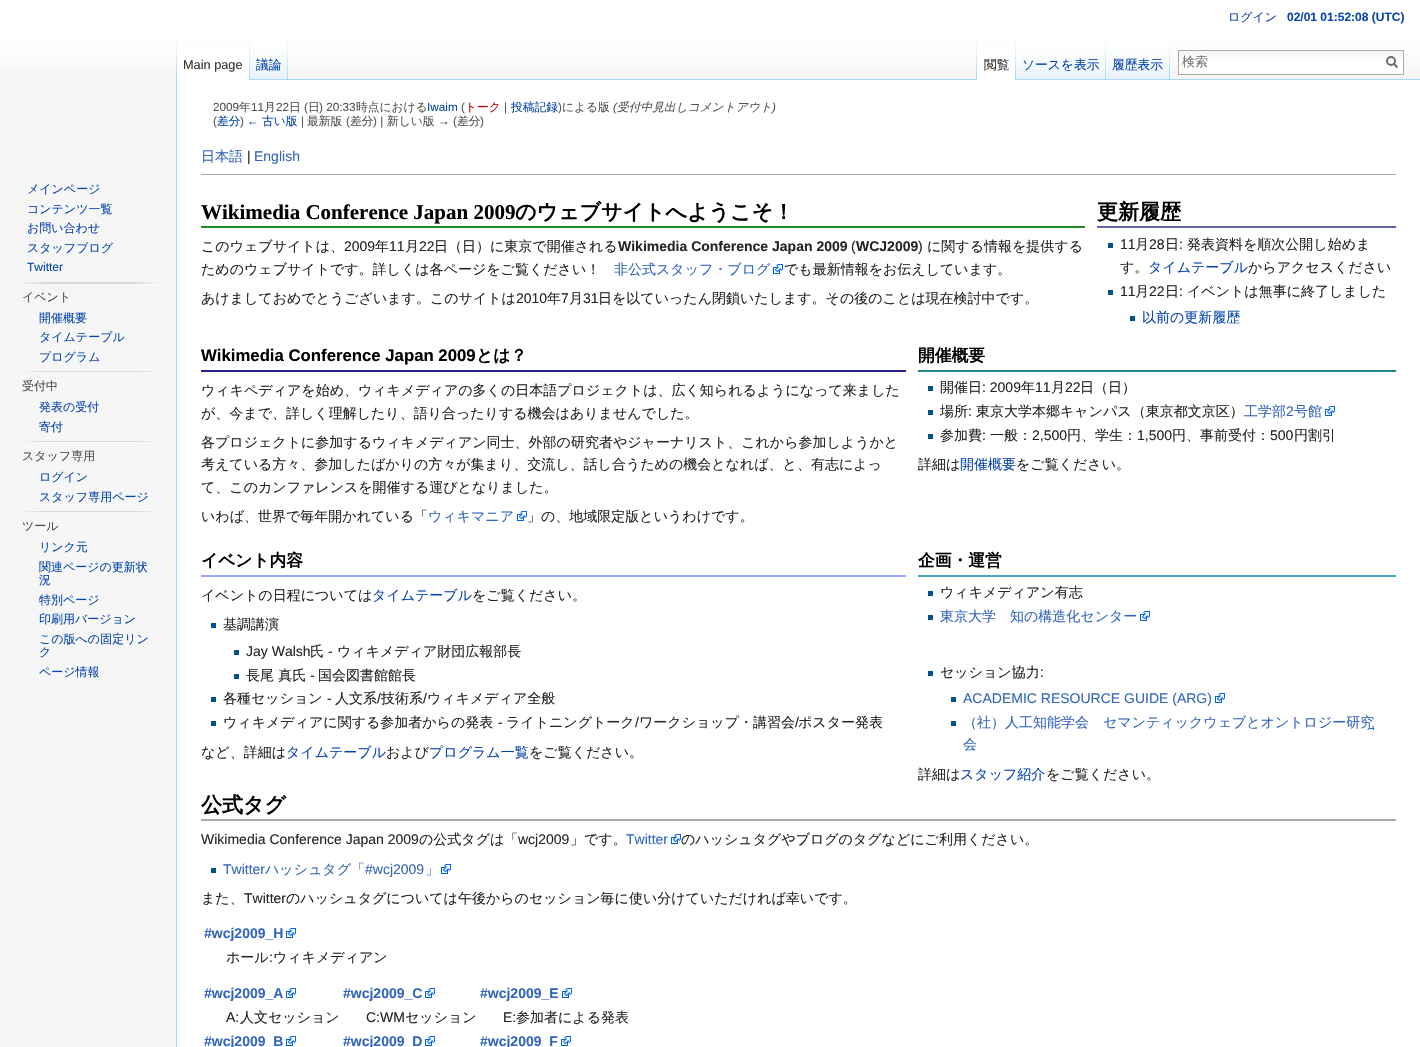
void draw(SkCanvas* canvas) {
    SkPaint paint;
    paint.setAntiAlias(true);
    auto face = [&](const char* family, int weight, float size, bool italic = false) {
        SkFontStyle style(weight, SkFontStyle::kNormal_Width,
            italic ? SkFontStyle::kItalic_Slant : SkFontStyle::kUpright_Slant);
        SkFont result(fontMgr->matchFamilyStyle(family, style), size);
        result.setSubpixel(true);
        return result;
    };
    auto write = [&](const char* s, float x, float y, const SkFont& font, SkColor color) {
        SkPaint ink(SkColor4f::FromColor(color));
        ink.setAntiAlias(true);
        canvas->drawString(s, x, y, font, ink);
    };
    auto block = [&](float x, float y, float w, float h, SkColor color) {
        SkPaint ink(SkColor4f::FromColor(color));
        ink.setAntiAlias(true);
        canvas->drawRect(SkRect::MakeXYWH(x, y, w, h), ink);
    };
    auto paste = [&](const char* path, float x, float y, float w, float h) {
        auto image = SkImages::DeferredFromEncodedData(SkData::MakeFromFileName(path));
        canvas->drawImageRect(image, SkRect::MakeXYWH(x, y, w, h), SkSamplingOptions());
    };
    canvas->clear(SkColorSetRGB(246, 246, 246));
    {
        const SkColor colors[] = {SK_ColorWHITE, SkColorSetRGB(246, 246, 246)};
        const float stops[] = {0.5f, 1};
        const SkPoint ends[] = {{710, 0}, {710, 80}};
        paint.setShader(SkGradientShader::MakeLinear(ends, colors, stops, 2, SkTileMode::kClamp));
        paint.setAlpha(255);
    }
    canvas->drawRect(SkRect::MakeXYWH(0, 0, 1420, 69), paint);
    auto kFont1 = face("WenQuanYi Zen Hei", 500, 12);
    write("ログイン", 1228, 21, kFont1, SkColorSetRGB(6, 69, 173));
    auto kFont2 = face("Liberation Sans", 700, 12);
    write("02/01 01:52:08 (UTC)", 1287, 21, kFont2, SkColorSetRGB(6, 69, 173));
    paste("pic1.png", 176, 40, 1, 39);
    block(177, 51, 72, 29, SK_ColorWHITE);
    paste("pic2.png", 249, 40, 1, 40);
    auto kFont3 = face("Liberation Sans", 400, 12.75f);
    write("Main page", 183, 69, kFont3, SkColorSetRGB(51, 51, 51));
    paste("pic3.png", 250, 40, 38, 40);
    paste("pic4.png", 287, 40, 1, 39);
    auto kFont4 = face("WenQuanYi Zen Hei", 500, 12.75f);
    write("議論", 256, 69, kFont4, SkColorSetRGB(6, 69, 173));
    paste("pic1.png", 976, 40, 1, 39);
    block(288, 79, 1132, 1, SkColorSetRGB(167, 215, 249));
    block(977, 51, 38, 29, SK_ColorWHITE);
    paste("pic2.png", 1015, 40, 1, 40);
    write("閲覧", 984, 69, kFont4, SkColorSetRGB(51, 51, 51));
    paste("pic5.png", 1016, 40, 90, 40);
    paste("pic4.png", 1105, 40, 1, 39);
    write("ソースを表示", 1022, 69, kFont4, SkColorSetRGB(6, 69, 173));
    paste("pic6.png", 1106, 40, 64, 40);
    paste("pic4.png", 1169, 40, 1, 39);
    write("履歴表示", 1112, 69, kFont4, SkColorSetRGB(6, 69, 173));
    block(1179, 59, 224, 15, SK_ColorWHITE);
    paste("pic7.png", 1179, 51, 224, 8);
    paint.setStyle(SkPaint::kStroke_Style);
    paint.setStrokeWidth(1);
    paint.setShader(nullptr);
    paint.setColor(SkColorSetRGB(170, 170, 170));
    canvas->drawRect(SkRect::MakeXYWH(1178.5f, 50.5f, 225, 24), paint);
    auto kFont5 = face("WenQuanYi Zen Hei", 500, 13);
    write("検索", 1182, 66, kFont5, SkColorSetRGB(117, 117, 117));
    paint.setStrokeWidth(2);
    paint.setColor(SkColorSetRGB(108, 108, 108));
    canvas->drawPath(SkPathBuilder().moveTo(1397.5f, 67.5f).lineTo(1393.5f, 63.5f).detach(), paint);
    canvas->drawCircle(1391, 61, 4, paint);
    write("メインページ", 27, 193, kFont1, SkColorSetRGB(6, 69, 173));
    write("コンテンツ一覧", 27, 213, kFont1, SkColorSetRGB(6, 69, 173));
    write("お問い合わせ", 27, 232, kFont1, SkColorSetRGB(6, 69, 173));
    write("スタッフブログ", 27, 252, kFont1, SkColorSetRGB(6, 69, 173));
    auto kFont6 = face("Liberation Sans", 400, 12);
    write("Twitter", 27, 271, kFont6, SkColorSetRGB(6, 69, 173));
    paste("pic8.png", 22, 282, 135, 2);
    write("イベント", 22, 301, kFont1, SkColorSetRGB(77, 77, 77));
    write("開催概要", 39, 322, kFont1, SkColorSetRGB(6, 69, 173));
    write("タイムテーブル", 39, 341, kFont1, SkColorSetRGB(6, 69, 173));
    write("プログラム", 39, 361, kFont1, SkColorSetRGB(6, 69, 173));
    paste("pic9.png", 22, 371, 135, 1);
    write("受付中", 22, 390, kFont1, SkColorSetRGB(77, 77, 77));
    write("発表の受付", 39, 411, kFont1, SkColorSetRGB(6, 69, 173));
    write("寄付", 39, 431, kFont1, SkColorSetRGB(6, 69, 173));
    paste("pic9.png", 22, 441, 135, 1);
    write("スタッフ専用", 22, 460, kFont1, SkColorSetRGB(77, 77, 77));
    write("ログイン", 39, 481, kFont1, SkColorSetRGB(6, 69, 173));
    write("スタッフ専用ページ", 39, 501, kFont1, SkColorSetRGB(6, 69, 173));
    paste("pic9.png", 22, 511, 135, 1);
    write("ツール", 22, 530, kFont1, SkColorSetRGB(77, 77, 77));
    write("リンク元", 39, 551, kFont1, SkColorSetRGB(6, 69, 173));
    write("関連ページの更新状", 39, 571, kFont1, SkColorSetRGB(6, 69, 173));
    write("況", 39, 584, kFont1, SkColorSetRGB(6, 69, 173));
    write("特別ページ", 39, 604, kFont1, SkColorSetRGB(6, 69, 173));
    write("印刷用バージョン", 39, 623, kFont1, SkColorSetRGB(6, 69, 173));
    write("この版への固定リン", 39, 643, kFont1, SkColorSetRGB(6, 69, 173));
    write("ク", 39, 656, kFont1, SkColorSetRGB(6, 69, 173));
    write("ページ情報", 39, 676, kFont1, SkColorSetRGB(6, 69, 173));
    block(177, 80, 1243, 967, SK_ColorWHITE);
    block(176, 79, 1, 968, SkColorSetRGB(167, 215, 249));
    auto kFont7 = face("Liberation Sans", 400, 11.75f);
    write("2009", 213, 111, kFont7, SkColorSetRGB(84, 84, 84));
    auto kFont8 = face("WenQuanYi Zen Hei", 500, 11.75f);
    write("年", 239, 111, kFont8, SkColorSetRGB(84, 84, 84));
    write("11", 251, 111, kFont7, SkColorSetRGB(84, 84, 84));
    write("月", 264, 111, kFont8, SkColorSetRGB(84, 84, 84));
    write("22", 276, 111, kFont7, SkColorSetRGB(84, 84, 84));
    write("日", 289, 111, kFont8, SkColorSetRGB(84, 84, 84));
    write("(", 304, 111, kFont7, SkColorSetRGB(84, 84, 84));
    write("日", 308, 111, kFont8, SkColorSetRGB(84, 84, 84));
    write(") 20:33", 319, 111, kFont7, SkColorSetRGB(84, 84, 84));
    write("時点における", 356, 111, kFont8, SkColorSetRGB(84, 84, 84));
    write("Iwaim", 427, 111, kFont7, SkColorSetRGB(6, 69, 173));
    write("(", 461, 111, kFont7, SkColorSetRGB(84, 84, 84));
    write("トーク", 465, 111, kFont8, SkColorSetRGB(186, 0, 0));
    write("|", 504, 111, kFont7, SkColorSetRGB(84, 84, 84));
    write("投稿記録", 511, 111, kFont8, SkColorSetRGB(6, 69, 173));
    write(")", 558, 111, kFont7, SkColorSetRGB(84, 84, 84));
    write("による版", 562, 111, kFont8, SkColorSetRGB(84, 84, 84));
    auto kFont9 = face("Liberation Sans", 400, 11.75f, true);
    write("(", 613, 111, kFont9, SkColorSetRGB(84, 84, 84));
    auto kFont10 = face("WenQuanYi Zen Hei", 500, 11.75f, true);
    write("受付中見出しコメントアウト", 617, 111, kFont10, SkColorSetRGB(84, 84, 84));
    write(")", 772, 111, kFont9, SkColorSetRGB(84, 84, 84));
    write("(", 213, 125, kFont7, SkColorSetRGB(84, 84, 84));
    write("差分", 217, 125, kFont8, SkColorSetRGB(6, 69, 173));
    write(")", 240, 125, kFont7, SkColorSetRGB(84, 84, 84));
    write("←", 247, 125, kFont7, SkColorSetRGB(6, 69, 173));
    write("古い版", 262, 125, kFont8, SkColorSetRGB(6, 69, 173));
    write("|", 301, 125, kFont7, SkColorSetRGB(84, 84, 84));
    write("最新版", 307, 125, kFont8, SkColorSetRGB(84, 84, 84));
    write("(", 346, 125, kFont7, SkColorSetRGB(84, 84, 84));
    write("差分", 350, 125, kFont8, SkColorSetRGB(84, 84, 84));
    write(") |", 373, 125, kFont7, SkColorSetRGB(84, 84, 84));
    write("新しい版", 387, 125, kFont8, SkColorSetRGB(84, 84, 84));
    write("→ (", 438, 125, kFont7, SkColorSetRGB(84, 84, 84));
    write("差分", 457, 125, kFont8, SkColorSetRGB(84, 84, 84));
    write(")", 480, 125, kFont7, SkColorSetRGB(84, 84, 84));
    auto kFont11 = face("WenQuanYi Zen Hei", 500, 14);
    write("日本語", 201, 161, kFont11, SkColorSetRGB(51, 102, 187));
    auto kFont12 = face("Liberation Sans", 400, 14);
    write("|", 247, 161, kFont12, SkColorSetRGB(37, 37, 37));
    write("English", 254, 161, kFont12, SkColorSetRGB(51, 102, 187));
    block(201, 174, 1195, 1, SkColorSetRGB(170, 170, 170));
    block(201, 226, 884, 2, SkColorSetRGB(34, 136, 34));
    auto kFont13 = face("Liberation Serif", 700, 21);
    write("Wikimedia Conference Japan 2009", 201, 219, kFont13, SK_ColorBLACK);
    auto kFont14 = face("WenQuanYi Zen Hei", 700, 21);
    write("のウェブサイトへようこそ！", 515, 219, kFont14, SK_ColorBLACK);
    write("このウェブサイトは、", 201, 251, kFont11, SkColorSetRGB(37, 37, 37));
    write("2009", 344, 251, kFont12, SkColorSetRGB(37, 37, 37));
    write("年", 375, 251, kFont11, SkColorSetRGB(37, 37, 37));
    write("11", 389, 251, kFont12, SkColorSetRGB(37, 37, 37));
    write("月", 405, 251, kFont11, SkColorSetRGB(37, 37, 37));
    write("22", 419, 251, kFont12, SkColorSetRGB(37, 37, 37));
    write("日（日）に東京で開催される", 434, 251, kFont11, SkColorSetRGB(37, 37, 37));
    auto kFont15 = face("Liberation Sans", 700, 14);
    write("Wikimedia Conference Japan 2009", 618, 251, kFont15, SkColorSetRGB(37, 37, 37));
    write("(", 851, 251, kFont12, SkColorSetRGB(37, 37, 37));
    write("WCJ2009", 856, 251, kFont15, SkColorSetRGB(37, 37, 37));
    write(")", 918, 251, kFont12, SkColorSetRGB(37, 37, 37));
    write("に関する情報を提供する", 927, 251, kFont11, SkColorSetRGB(37, 37, 37));
    write("ためのウェブサイトです。詳しくは各ページをご覧ください！", 201, 274, kFont11, SkColorSetRGB(37, 37, 37));
    write("非公式スタッフ・ブログ", 614, 274, kFont11, SkColorSetRGB(51, 102, 187));
    paste("pic10.png", 773, 264, 10, 10);
    write("でも最新情報をお伝えしています。", 784, 274, kFont11, SkColorSetRGB(37, 37, 37));
    write("あけましておめでとうございます。このサイトは", 201, 303, kFont11, SkColorSetRGB(37, 37, 37));
    write("2010", 516, 303, kFont12, SkColorSetRGB(37, 37, 37));
    write("年", 547, 303, kFont11, SkColorSetRGB(37, 37, 37));
    write("7", 561, 303, kFont12, SkColorSetRGB(37, 37, 37));
    write("月", 569, 303, kFont11, SkColorSetRGB(37, 37, 37));
    write("31", 583, 303, kFont12, SkColorSetRGB(37, 37, 37));
    write("日を以ていったん閉鎖いたします。その後のことは現在検討中です。", 598, 303, kFont11, SkColorSetRGB(37, 37, 37));
    block(1097, 226, 299, 2, SkColorSetRGB(99, 99, 170));
    write("更新履歴", 1097, 219, kFont14, SK_ColorBLACK);
    block(1108, 243, 5, 5, SkColorSetRGB(0, 82, 140));
    write("11", 1120, 249, kFont12, SkColorSetRGB(37, 37, 37));
    write("月", 1135, 249, kFont11, SkColorSetRGB(37, 37, 37));
    write("28", 1149, 249, kFont12, SkColorSetRGB(37, 37, 37));
    write("日", 1165, 249, kFont11, SkColorSetRGB(37, 37, 37));
    write(":", 1179, 249, kFont12, SkColorSetRGB(37, 37, 37));
    write("発表資料を順次公開し始めま", 1187, 249, kFont11, SkColorSetRGB(37, 37, 37));
    write("す。", 1120, 272, kFont11, SkColorSetRGB(37, 37, 37));
    write("タイムテーブル", 1148, 272, kFont11, SkColorSetRGB(6, 69, 173));
    write("からアクセスください", 1248, 272, kFont11, SkColorSetRGB(37, 37, 37));
    block(1108, 290, 5, 5, SkColorSetRGB(0, 82, 140));
    write("11", 1120, 296, kFont12, SkColorSetRGB(37, 37, 37));
    write("月", 1135, 296, kFont11, SkColorSetRGB(37, 37, 37));
    write("22", 1149, 296, kFont12, SkColorSetRGB(37, 37, 37));
    write("日", 1165, 296, kFont11, SkColorSetRGB(37, 37, 37));
    write(":", 1179, 296, kFont12, SkColorSetRGB(37, 37, 37));
    write("イベントは無事に終了しました", 1187, 296, kFont11, SkColorSetRGB(37, 37, 37));
    block(1130, 316, 5, 5, SkColorSetRGB(0, 82, 140));
    write("以前の更新履歴", 1142, 322, kFont11, SkColorSetRGB(6, 69, 173));
    block(201, 370, 705, 2, SkColorSetRGB(34, 34, 136));
    auto kFont16 = face("Liberation Sans", 700, 16.75f);
    write("Wikimedia Conference Japan 2009", 201, 361, kFont16, SK_ColorBLACK);
    auto kFont17 = face("WenQuanYi Zen Hei", 700, 16.75f);
    write("とは？", 476, 361, kFont17, SK_ColorBLACK);
    write("ウィキペディアを始め、ウィキメディアの多くの日本語プロジェクトは、広く知られるようになって来ました", 201, 395, kFont11, SkColorSetRGB(37, 37, 37));
    write("が、今まで、詳しく理解したり、語り合ったりする機会はありませんでした。", 201, 418, kFont11, SkColorSetRGB(37, 37, 37));
    write("各プロジェクトに参加するウィキメディアン同士、外部の研究者やジャーナリスト、これから参加しようかと", 201, 447, kFont11, SkColorSetRGB(37, 37, 37));
    write("考えている方々、参加したばかりの方々が集まり、交流し、話し合うための機会となれば、と、有志によっ", 201, 469, kFont11, SkColorSetRGB(37, 37, 37));
    write("て、このカンファレンスを開催する運びとなりました。", 201, 492, kFont11, SkColorSetRGB(37, 37, 37));
    write("いわば、世界で毎年開かれている「", 201, 521, kFont11, SkColorSetRGB(37, 37, 37));
    write("ウィキマニア", 428, 521, kFont11, SkColorSetRGB(51, 102, 187));
    paste("pic10.png", 517, 511, 10, 10);
    write("」の、地域限定版というわけです。", 527, 521, kFont11, SkColorSetRGB(37, 37, 37));
    block(918, 370, 478, 2, SkColorSetRGB(34, 136, 136));
    write("開催概要", 918, 361, kFont17, SK_ColorBLACK);
    block(928, 386, 5, 5, SkColorSetRGB(0, 82, 140));
    write("開催日", 940, 392, kFont11, SkColorSetRGB(37, 37, 37));
    write(": 2009", 982, 392, kFont12, SkColorSetRGB(37, 37, 37));
    write("年", 1021, 392, kFont11, SkColorSetRGB(37, 37, 37));
    write("11", 1035, 392, kFont12, SkColorSetRGB(37, 37, 37));
    write("月", 1051, 392, kFont11, SkColorSetRGB(37, 37, 37));
    write("22", 1065, 392, kFont12, SkColorSetRGB(37, 37, 37));
    write("日（日）", 1080, 392, kFont11, SkColorSetRGB(37, 37, 37));
    block(928, 410, 5, 5, SkColorSetRGB(0, 82, 140));
    write("場所", 940, 416, kFont11, SkColorSetRGB(37, 37, 37));
    write(":", 968, 416, kFont12, SkColorSetRGB(37, 37, 37));
    write("東京大学本郷キャンパス（東京都文京区）", 976, 416, kFont11, SkColorSetRGB(37, 37, 37));
    write("工学部", 1244, 416, kFont11, SkColorSetRGB(51, 102, 187));
    write("2", 1286, 416, kFont12, SkColorSetRGB(51, 102, 187));
    write("号館", 1294, 416, kFont11, SkColorSetRGB(51, 102, 187));
    paste("pic10.png", 1325, 406, 10, 10);
    block(928, 434, 5, 5, SkColorSetRGB(0, 82, 140));
    write("参加費", 940, 440, kFont11, SkColorSetRGB(37, 37, 37));
    write(":", 982, 440, kFont12, SkColorSetRGB(37, 37, 37));
    write("一般：", 990, 440, kFont11, SkColorSetRGB(37, 37, 37));
    write("2,500", 1032, 440, kFont12, SkColorSetRGB(37, 37, 37));
    write("円、学生：", 1067, 440, kFont11, SkColorSetRGB(37, 37, 37));
    write("1,500", 1137, 440, kFont12, SkColorSetRGB(37, 37, 37));
    write("円、事前受付：", 1172, 440, kFont11, SkColorSetRGB(37, 37, 37));
    write("500", 1270, 440, kFont12, SkColorSetRGB(37, 37, 37));
    write("円割引", 1294, 440, kFont11, SkColorSetRGB(37, 37, 37));
    write("詳細は", 918, 469, kFont11, SkColorSetRGB(37, 37, 37));
    write("開催概要", 960, 469, kFont11, SkColorSetRGB(6, 69, 173));
    write("をご覧ください。", 1016, 469, kFont11, SkColorSetRGB(37, 37, 37));
    block(201, 575, 705, 2, SkColorSetRGB(150, 165, 255));
    write("イベント内容", 201, 566, kFont17, SK_ColorBLACK);
    write("イベントの日程については", 201, 600, kFont11, SkColorSetRGB(37, 37, 37));
    write("タイムテーブル", 372, 600, kFont11, SkColorSetRGB(6, 69, 173));
    write("をご覧ください。", 472, 600, kFont11, SkColorSetRGB(37, 37, 37));
    block(211, 623, 5, 5, SkColorSetRGB(0, 82, 140));
    write("基調講演", 223, 629, kFont11, SkColorSetRGB(37, 37, 37));
    block(234, 650, 5, 5, SkColorSetRGB(0, 82, 140));
    write("Jay Walsh", 246, 656, kFont12, SkColorSetRGB(37, 37, 37));
    write("氏", 310, 656, kFont11, SkColorSetRGB(37, 37, 37));
    write("-", 328, 656, kFont12, SkColorSetRGB(37, 37, 37));
    write("ウィキメディア財団広報部長", 337, 656, kFont11, SkColorSetRGB(37, 37, 37));
    block(234, 674, 5, 5, SkColorSetRGB(0, 82, 140));
    write("長尾 真氏", 246, 680, kFont11, SkColorSetRGB(37, 37, 37));
    write("-", 310, 680, kFont12, SkColorSetRGB(37, 37, 37));
    write("国会図書館館長", 318, 680, kFont11, SkColorSetRGB(37, 37, 37));
    block(211, 697, 5, 5, SkColorSetRGB(0, 82, 140));
    write("各種セッション", 223, 703, kFont11, SkColorSetRGB(37, 37, 37));
    write("-", 327, 703, kFont12, SkColorSetRGB(37, 37, 37));
    write("人文系", 335, 703, kFont11, SkColorSetRGB(37, 37, 37));
    write("/", 377, 703, kFont12, SkColorSetRGB(37, 37, 37));
    write("技術系", 381, 703, kFont11, SkColorSetRGB(37, 37, 37));
    write("/", 423, 703, kFont12, SkColorSetRGB(37, 37, 37));
    write("ウィキメディア全般", 427, 703, kFont11, SkColorSetRGB(37, 37, 37));
    block(211, 721, 5, 5, SkColorSetRGB(0, 82, 140));
    write("ウィキメディアに関する参加者からの発表", 223, 727, kFont11, SkColorSetRGB(37, 37, 37));
    write("-", 498, 727, kFont12, SkColorSetRGB(37, 37, 37));
    write("ライトニングトーク", 506, 727, kFont11, SkColorSetRGB(37, 37, 37));
    write("/", 635, 727, kFont12, SkColorSetRGB(37, 37, 37));
    write("ワークショップ・講習会", 639, 727, kFont11, SkColorSetRGB(37, 37, 37));
    write("/", 795, 727, kFont12, SkColorSetRGB(37, 37, 37));
    write("ポスター発表", 798, 727, kFont11, SkColorSetRGB(37, 37, 37));
    write("など、詳細は", 201, 757, kFont11, SkColorSetRGB(37, 37, 37));
    write("タイムテーブル", 286, 757, kFont11, SkColorSetRGB(6, 69, 173));
    write("および", 386, 757, kFont11, SkColorSetRGB(37, 37, 37));
    write("プログラム一覧", 429, 757, kFont11, SkColorSetRGB(6, 69, 173));
    write("をご覧ください。", 529, 757, kFont11, SkColorSetRGB(37, 37, 37));
    block(918, 575, 478, 2, SkColorSetRGB(68, 170, 187));
    write("企画・運営", 918, 566, kFont17, SK_ColorBLACK);
    block(928, 591, 5, 5, SkColorSetRGB(0, 82, 140));
    write("ウィキメディアン有志", 940, 597, kFont11, SkColorSetRGB(37, 37, 37));
    block(928, 615, 5, 5, SkColorSetRGB(0, 82, 140));
    write("東京大学　知の構造化センター", 940, 621, kFont11, SkColorSetRGB(51, 102, 187));
    paste("pic10.png", 1140, 611, 10, 10);
    block(928, 671, 5, 5, SkColorSetRGB(0, 82, 140));
    write("セッション協力", 940, 677, kFont11, SkColorSetRGB(37, 37, 37));
    write(":", 1040, 677, kFont12, SkColorSetRGB(37, 37, 37));
    block(951, 697, 5, 5, SkColorSetRGB(0, 82, 140));
    write("ACADEMIC RESOURCE GUIDE (ARG)", 963, 703, kFont12, SkColorSetRGB(51, 102, 187));
    paste("pic10.png", 1215, 693, 10, 10);
    block(951, 721, 5, 5, SkColorSetRGB(0, 82, 140));
    paste("pic11.png", 1367, 728, 7, 2);
    write("（社）人工知能学会　セマンティックウェブとオントロジー研究", 963, 727, kFont11, SkColorSetRGB(51, 102, 187));
    write("会", 963, 749, kFont11, SkColorSetRGB(51, 102, 187));
    write("詳細は", 918, 779, kFont11, SkColorSetRGB(37, 37, 37));
    write("スタッフ紹介", 960, 779, kFont11, SkColorSetRGB(6, 69, 173));
    write("をご覧ください。", 1046, 779, kFont11, SkColorSetRGB(37, 37, 37));
    block(201, 819, 1195, 2, SkColorSetRGB(170, 170, 170));
    write("公式タグ", 201, 812, kFont14, SK_ColorBLACK);
    write("Wikimedia Conference Japan 2009", 201, 844, kFont12, SkColorSetRGB(37, 37, 37));
    write("の公式タグは「", 419, 844, kFont11, SkColorSetRGB(37, 37, 37));
    write("wcj2009", 518, 844, kFont12, SkColorSetRGB(37, 37, 37));
    write("」です。", 570, 844, kFont11, SkColorSetRGB(37, 37, 37));
    write("Twitter", 626, 844, kFont12, SkColorSetRGB(51, 102, 187));
    paste("pic10.png", 671, 834, 10, 10);
    write("のハッシュタグやブログのタグなどにご利用ください。", 681, 844, kFont11, SkColorSetRGB(37, 37, 37));
    block(211, 868, 5, 5, SkColorSetRGB(0, 82, 140));
    write("Twitter", 223, 874, kFont12, SkColorSetRGB(51, 102, 187));
    write("ハッシュタグ「", 265, 874, kFont11, SkColorSetRGB(51, 102, 187));
    write("#wcj2009", 365, 874, kFont12, SkColorSetRGB(51, 102, 187));
    write("」", 425, 874, kFont11, SkColorSetRGB(51, 102, 187));
    paste("pic10.png", 441, 864, 10, 10);
    write("また、", 201, 903, kFont11, SkColorSetRGB(37, 37, 37));
    write("Twitter", 244, 903, kFont12, SkColorSetRGB(37, 37, 37));
    write("のハッシュタグについては午後からのセッション毎に使い分けていただければ幸いです。", 286, 903, kFont11, SkColorSetRGB(37, 37, 37));
    write("#wcj2009_H", 204, 938, kFont15, SkColorSetRGB(51, 102, 187));
    paste("pic10.png", 286, 928, 10, 10);
    write("ホール", 226, 962, kFont11, SkColorSetRGB(37, 37, 37));
    write(":", 269, 962, kFont12, SkColorSetRGB(37, 37, 37));
    write("ウィキメディアン", 273, 962, kFont11, SkColorSetRGB(37, 37, 37));
    write("#wcj2009_A", 204, 998, kFont15, SkColorSetRGB(51, 102, 187));
    paste("pic10.png", 286, 988, 10, 10);
    write("A:", 226, 1022, kFont12, SkColorSetRGB(37, 37, 37));
    write("人文セッション", 240, 1022, kFont11, SkColorSetRGB(37, 37, 37));
    write("#wcj2009_B", 204, 1046, kFont15, SkColorSetRGB(51, 102, 187));
    paste("pic10.png", 286, 1036, 10, 10);
    write("#wcj2009_C", 343, 998, kFont15, SkColorSetRGB(51, 102, 187));
    paste("pic10.png", 425, 988, 10, 10);
    write("C:WM", 366, 1022, kFont12, SkColorSetRGB(37, 37, 37));
    write("セッション", 405, 1022, kFont11, SkColorSetRGB(37, 37, 37));
    write("#wcj2009_D", 343, 1046, kFont15, SkColorSetRGB(51, 102, 187));
    paste("pic10.png", 425, 1036, 10, 10);
    write("#wcj2009_E", 480, 998, kFont15, SkColorSetRGB(51, 102, 187));
    paste("pic10.png", 562, 988, 10, 10);
    write("E:", 503, 1022, kFont12, SkColorSetRGB(37, 37, 37));
    write("参加者による発表", 516, 1022, kFont11, SkColorSetRGB(37, 37, 37));
    write("#wcj2009_F", 480, 1046, kFont15, SkColorSetRGB(51, 102, 187));
    paste("pic10.png", 561, 1036, 10, 10);
}
